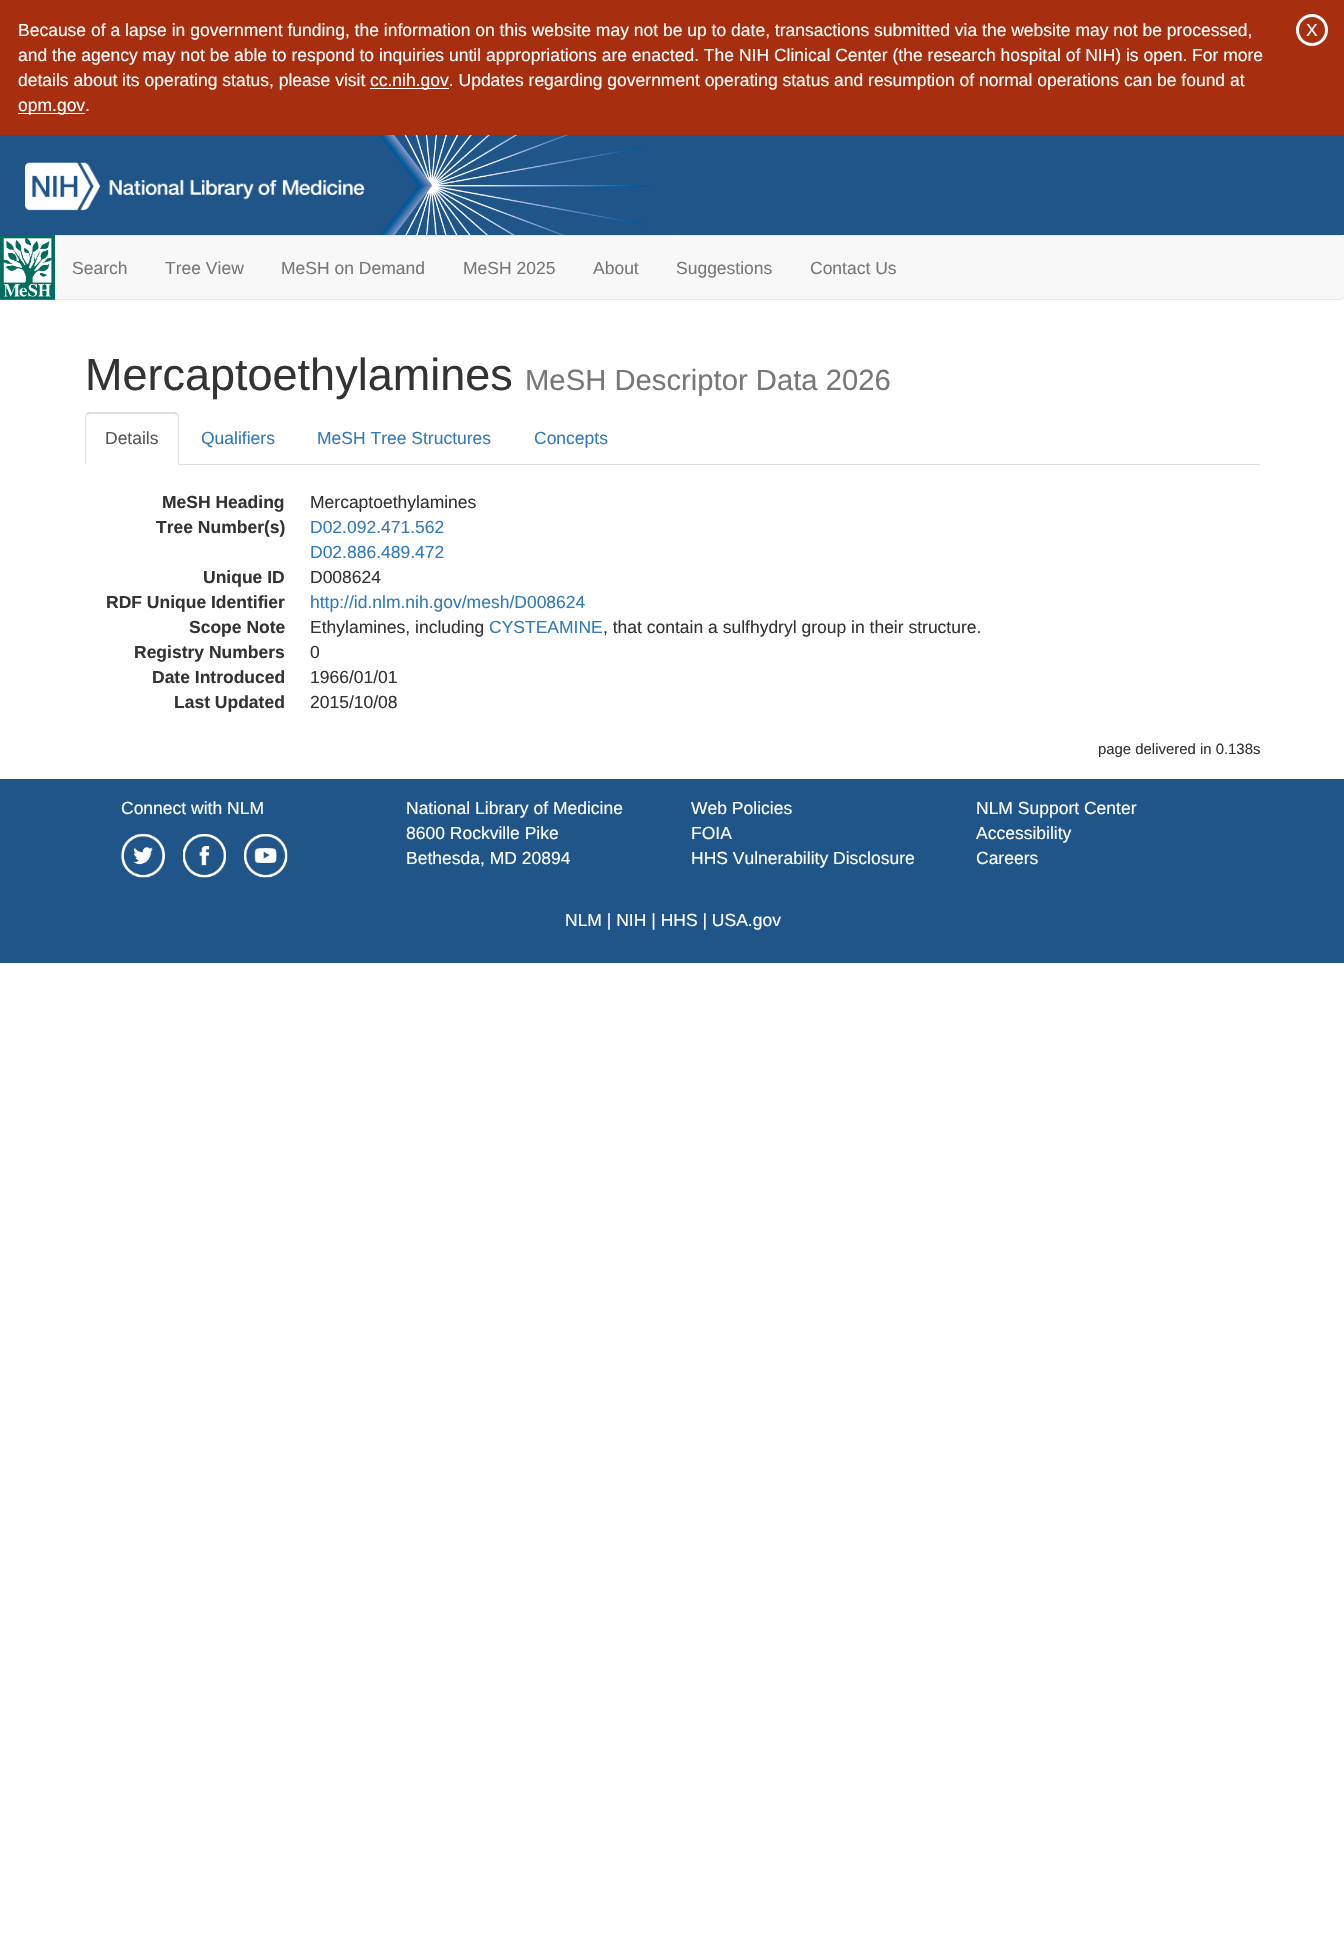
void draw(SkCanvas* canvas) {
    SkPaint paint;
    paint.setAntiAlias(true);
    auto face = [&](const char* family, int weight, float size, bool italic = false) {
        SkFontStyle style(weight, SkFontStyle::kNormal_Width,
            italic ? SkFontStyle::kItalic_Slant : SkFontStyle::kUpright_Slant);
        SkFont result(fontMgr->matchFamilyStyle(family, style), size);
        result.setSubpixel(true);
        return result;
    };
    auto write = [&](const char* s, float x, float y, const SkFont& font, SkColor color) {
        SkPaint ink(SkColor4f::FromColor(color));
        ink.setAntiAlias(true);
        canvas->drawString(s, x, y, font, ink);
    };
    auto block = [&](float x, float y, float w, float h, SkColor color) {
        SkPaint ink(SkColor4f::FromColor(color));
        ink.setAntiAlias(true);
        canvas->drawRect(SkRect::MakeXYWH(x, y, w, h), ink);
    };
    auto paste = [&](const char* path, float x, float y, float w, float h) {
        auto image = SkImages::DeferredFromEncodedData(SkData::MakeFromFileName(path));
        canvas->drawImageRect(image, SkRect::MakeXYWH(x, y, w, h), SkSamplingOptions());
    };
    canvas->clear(SK_ColorWHITE);
    block(0, 0, 1344, 135, SkColorSetRGB(167, 47, 16));
    auto kFont1 = face("Liberation Sans", 400, 17.5f);
    write("Because of a lapse in government funding, the information on this website may not be up to date, transactions submitted via the website may not be processed,", 18, 36, kFont1, SK_ColorWHITE);
    write("and the agency may not be able to respond to inquiries until appropriations are enacted. The NIH Clinical Center (the research hospital of NIH) is open. For more", 18, 61, kFont1, SK_ColorWHITE);
    write("details about its operating status, please visit", 18, 86, kFont1, SK_ColorWHITE);
    block(370, 88, 79, 1, SK_ColorWHITE);
    write("cc.nih.gov. Updates regarding government operating status and resumption of normal operations can be found at", 370, 86, kFont1, SK_ColorWHITE);
    block(18, 113, 67, 1, SK_ColorWHITE);
    write("opm.gov.", 18, 111, kFont1, SK_ColorWHITE);
    paint.setStyle(SkPaint::kStroke_Style);
    paint.setStrokeWidth(3);
    paint.setColor(SK_ColorWHITE);
    canvas->drawCircle(1312, 30, 14.5f, paint);
    write("X", 1306, 36, kFont1, SK_ColorWHITE);
    block(0, 135, 1344, 100, SkColorSetRGB(32, 85, 138));
    paste("pic1.png", 379, 135, 270, 100);
    paste("pic2.png", 25, 162, 340, 49);
    paint.setStyle(SkPaint::kFill_Style);
    paint.setColor(SkColorSetRGB(248, 248, 248));
    canvas->drawRoundRect(SkRect::MakeXYWH(0.5f, 235.5f, 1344, 64), 4.5f, 4.5f, paint);
    paint.setStyle(SkPaint::kStroke_Style);
    paint.setStrokeWidth(1);
    paint.setColor(SkColorSetRGB(231, 231, 231));
    canvas->drawRoundRect(SkRect::MakeXYWH(0.5f, 235.5f, 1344, 64), 4.5f, 4.5f, paint);
    paste("pic3.png", 0, 235, 55, 65);
    write("Search", 72, 274, kFont1, SkColorSetRGB(119, 119, 119));
    write("Tree View", 165, 274, kFont1, SkColorSetRGB(119, 119, 119));
    write("MeSH on Demand", 281, 274, kFont1, SkColorSetRGB(119, 119, 119));
    write("MeSH 2025", 463, 274, kFont1, SkColorSetRGB(119, 119, 119));
    write("About", 593, 274, kFont1, SkColorSetRGB(119, 119, 119));
    write("Suggestions", 676, 274, kFont1, SkColorSetRGB(119, 119, 119));
    write("Contact Us", 810, 274, kFont1, SkColorSetRGB(119, 119, 119));
    auto kFont2 = face("Liberation Sans", 400, 45);
    write("Mercaptoethylamines", 85, 390, kFont2, SkColorSetRGB(51, 51, 51));
    auto kFont3 = face("Liberation Sans", 400, 29.25f);
    write("MeSH Descriptor Data 2026", 525, 390, kFont3, SkColorSetRGB(119, 119, 119));
    block(179, 464, 1081, 1, SkColorSetRGB(221, 221, 221));
    paint.setStyle(SkPaint::kFill_Style);
    paint.setColor(SkColorSetRGB(221, 221, 221));
    canvas->drawPath(SkPathBuilder().moveTo(90, 414).lineTo(87, 415).lineTo(86, 414).lineTo(88, 412).lineTo(176, 412).lineTo(178, 414).lineTo(177, 415).lineTo(174, 414).close().detach(), paint);
    canvas->drawPath(SkPathBuilder().moveTo(179, 416).lineTo(179, 465).lineTo(178, 464).lineTo(178, 417).lineTo(177, 415).lineTo(178, 414).close().detach(), paint);
    canvas->drawPath(SkPathBuilder().moveTo(85, 465).lineTo(86, 464).lineTo(86, 417).lineTo(87, 415).lineTo(86, 414).cubicTo(86, 415, 85, 416, 85, 418).close().detach(), paint);
    write("Details", 105, 444, kFont1, SkColorSetRGB(85, 85, 85));
    write("Qualifiers", 201, 444, kFont1, SkColorSetRGB(51, 122, 183));
    write("MeSH Tree Structures", 317, 444, kFont1, SkColorSetRGB(51, 122, 183));
    write("Concepts", 534, 444, kFont1, SkColorSetRGB(51, 122, 183));
    auto kFont4 = face("Liberation Sans", 700, 17.5f);
    write("MeSH Heading", 162, 508, kFont4, SkColorSetRGB(51, 51, 51));
    write("Mercaptoethylamines", 310, 508, kFont1, SkColorSetRGB(51, 51, 51));
    write("Tree Number(s)", 156, 533, kFont4, SkColorSetRGB(51, 51, 51));
    write("D02.092.471.562", 310, 533, kFont1, SkColorSetRGB(51, 122, 183));
    write("D02.886.489.472", 310, 558, kFont1, SkColorSetRGB(51, 122, 183));
    write("Unique ID", 203, 583, kFont4, SkColorSetRGB(51, 51, 51));
    write("D008624", 310, 583, kFont1, SkColorSetRGB(51, 51, 51));
    write("RDF Unique Identifier", 106, 608, kFont4, SkColorSetRGB(51, 51, 51));
    write("http://id.nlm.nih.gov/mesh/D008624", 310, 608, kFont1, SkColorSetRGB(51, 122, 183));
    write("Scope Note", 189, 633, kFont4, SkColorSetRGB(51, 51, 51));
    write("Ethylamines, including", 310, 633, kFont1, SkColorSetRGB(51, 51, 51));
    write("CYSTEAMINE", 489, 633, kFont1, SkColorSetRGB(51, 122, 183));
    write(", that contain a sulfhydryl group in their structure.", 603, 633, kFont1, SkColorSetRGB(51, 51, 51));
    write("Registry Numbers", 134, 658, kFont4, SkColorSetRGB(51, 51, 51));
    write("0", 310, 658, kFont1, SkColorSetRGB(51, 51, 51));
    write("Date Introduced", 152, 683, kFont4, SkColorSetRGB(51, 51, 51));
    write("1966/01/01", 310, 683, kFont1, SkColorSetRGB(51, 51, 51));
    write("Last Updated", 174, 708, kFont4, SkColorSetRGB(51, 51, 51));
    write("2015/10/08", 310, 708, kFont1, SkColorSetRGB(51, 51, 51));
    auto kFont5 = face("Liberation Sans", 400, 14.9f);
    write("page delivered in 0.138s", 1098, 754, kFont5, SkColorSetRGB(51, 51, 51));
    block(0, 779, 1344, 184, SkColorSetRGB(32, 85, 138));
    write("Connect with NLM", 121, 814, kFont1, SK_ColorWHITE);
    paste("pic4.png", 121, 834, 44, 44);
    paste("pic5.png", 183, 834, 43, 44);
    paste("pic6.png", 244, 834, 44, 44);
    write("National Library of Medicine", 406, 814, kFont1, SK_ColorWHITE);
    write("8600 Rockville Pike", 406, 839, kFont1, SK_ColorWHITE);
    write("Bethesda, MD 20894", 406, 864, kFont1, SK_ColorWHITE);
    write("Web Policies", 691, 814, kFont1, SK_ColorWHITE);
    write("FOIA", 691, 839, kFont1, SK_ColorWHITE);
    write("HHS Vulnerability Disclosure", 691, 864, kFont1, SK_ColorWHITE);
    write("NLM Support Center", 976, 814, kFont1, SK_ColorWHITE);
    write("Accessibility", 976, 839, kFont1, SK_ColorWHITE);
    write("Careers", 976, 864, kFont1, SK_ColorWHITE);
    write("NLM | NIH | HHS | USA.gov", 565, 926, kFont1, SK_ColorWHITE);
}
